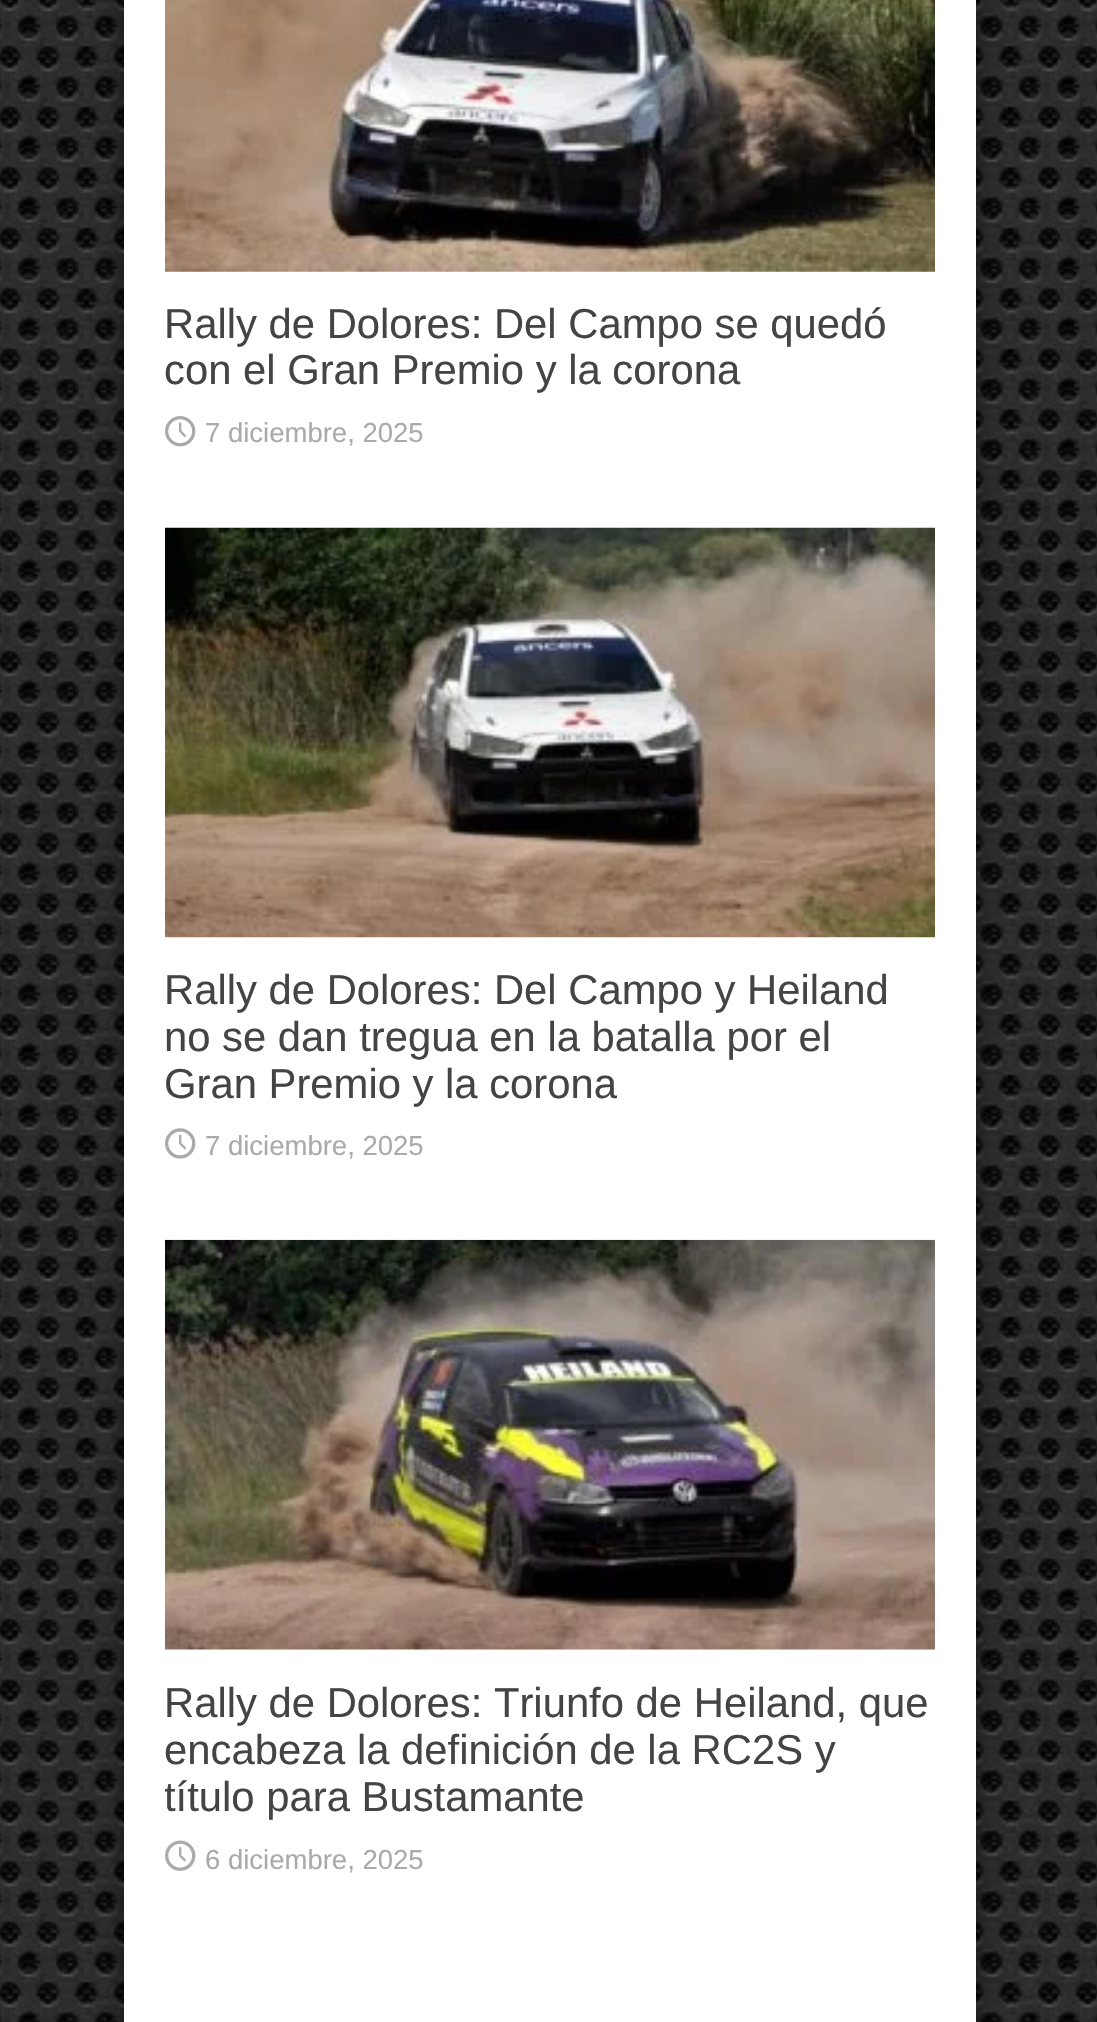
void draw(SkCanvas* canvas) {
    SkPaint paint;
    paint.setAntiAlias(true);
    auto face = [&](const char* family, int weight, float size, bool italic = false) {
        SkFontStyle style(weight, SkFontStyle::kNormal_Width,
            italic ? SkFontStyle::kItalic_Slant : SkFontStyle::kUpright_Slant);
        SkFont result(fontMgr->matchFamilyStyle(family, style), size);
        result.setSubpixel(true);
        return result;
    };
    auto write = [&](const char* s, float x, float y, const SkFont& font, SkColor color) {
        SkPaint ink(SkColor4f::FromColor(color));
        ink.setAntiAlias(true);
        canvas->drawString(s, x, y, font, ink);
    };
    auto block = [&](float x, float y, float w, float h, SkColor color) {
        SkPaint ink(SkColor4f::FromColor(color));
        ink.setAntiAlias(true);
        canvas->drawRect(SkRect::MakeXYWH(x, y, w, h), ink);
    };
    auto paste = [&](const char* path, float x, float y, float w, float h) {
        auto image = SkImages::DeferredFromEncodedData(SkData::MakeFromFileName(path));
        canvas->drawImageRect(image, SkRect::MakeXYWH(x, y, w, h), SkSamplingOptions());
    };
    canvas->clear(SK_ColorWHITE);
    paste("pic1.png", 0, 0, 1097, 2022);
    paint.setColor(SkColorSetARGB(128, 0, 0, 0));
    paint.setMaskFilter(SkMaskFilter::MakeBlur(kNormal_SkBlurStyle, 14));
    canvas->drawRect(SkRect::MakeXYWH(124, -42, 852, 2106), paint);
    paint.setMaskFilter(nullptr);
    block(124, 0, 852, 2022, SK_ColorWHITE);
    paste("pic2.png", 165, 0, 770, 272);
    auto kFont1 = face("Liberation Sans", 400, 41.8f);
    write("Rally de Dolores: Del Campo se quedó", 164, 338, kFont1, SkColorSetRGB(68, 68, 68));
    write("con el Gran Premio y la corona", 164, 384, kFont1, SkColorSetRGB(68, 68, 68));
    paste("pic3.png", 165, 416, 31, 31);
    auto kFont2 = face("Liberation Sans", 400, 27.5f);
    write("7 diciembre, 2025", 205, 442, kFont2, SkColorSetRGB(170, 170, 170));
    paste("pic4.png", 165, 527, 770, 411);
    write("Rally de Dolores: Del Campo y Heiland", 164, 1004, kFont1, SkColorSetRGB(68, 68, 68));
    write("no se dan tregua en la batalla por el", 164, 1051, kFont1, SkColorSetRGB(68, 68, 68));
    write("Gran Premio y la corona", 164, 1098, kFont1, SkColorSetRGB(68, 68, 68));
    paste("pic5.png", 165, 1128, 31, 31);
    write("7 diciembre, 2025", 205, 1155, kFont2, SkColorSetRGB(170, 170, 170));
    paste("pic6.png", 165, 1239, 770, 411);
    write("Rally de Dolores: Triunfo de Heiland, que", 164, 1717, kFont1, SkColorSetRGB(68, 68, 68));
    write("encabeza la definición de la RC2S y", 164, 1764, kFont1, SkColorSetRGB(68, 68, 68));
    canvas->save();
    canvas->clipRect(SkRect::MakeXYWH(165, 1240, 770, 658));
    write("título para Bustamante", 164, 1811, kFont1, SkColorSetRGB(68, 68, 68));
    canvas->restore();
    paste("pic7.png", 165, 1840, 31, 31);
    write("6 diciembre, 2025", 205, 1869, kFont2, SkColorSetRGB(170, 170, 170));
}
